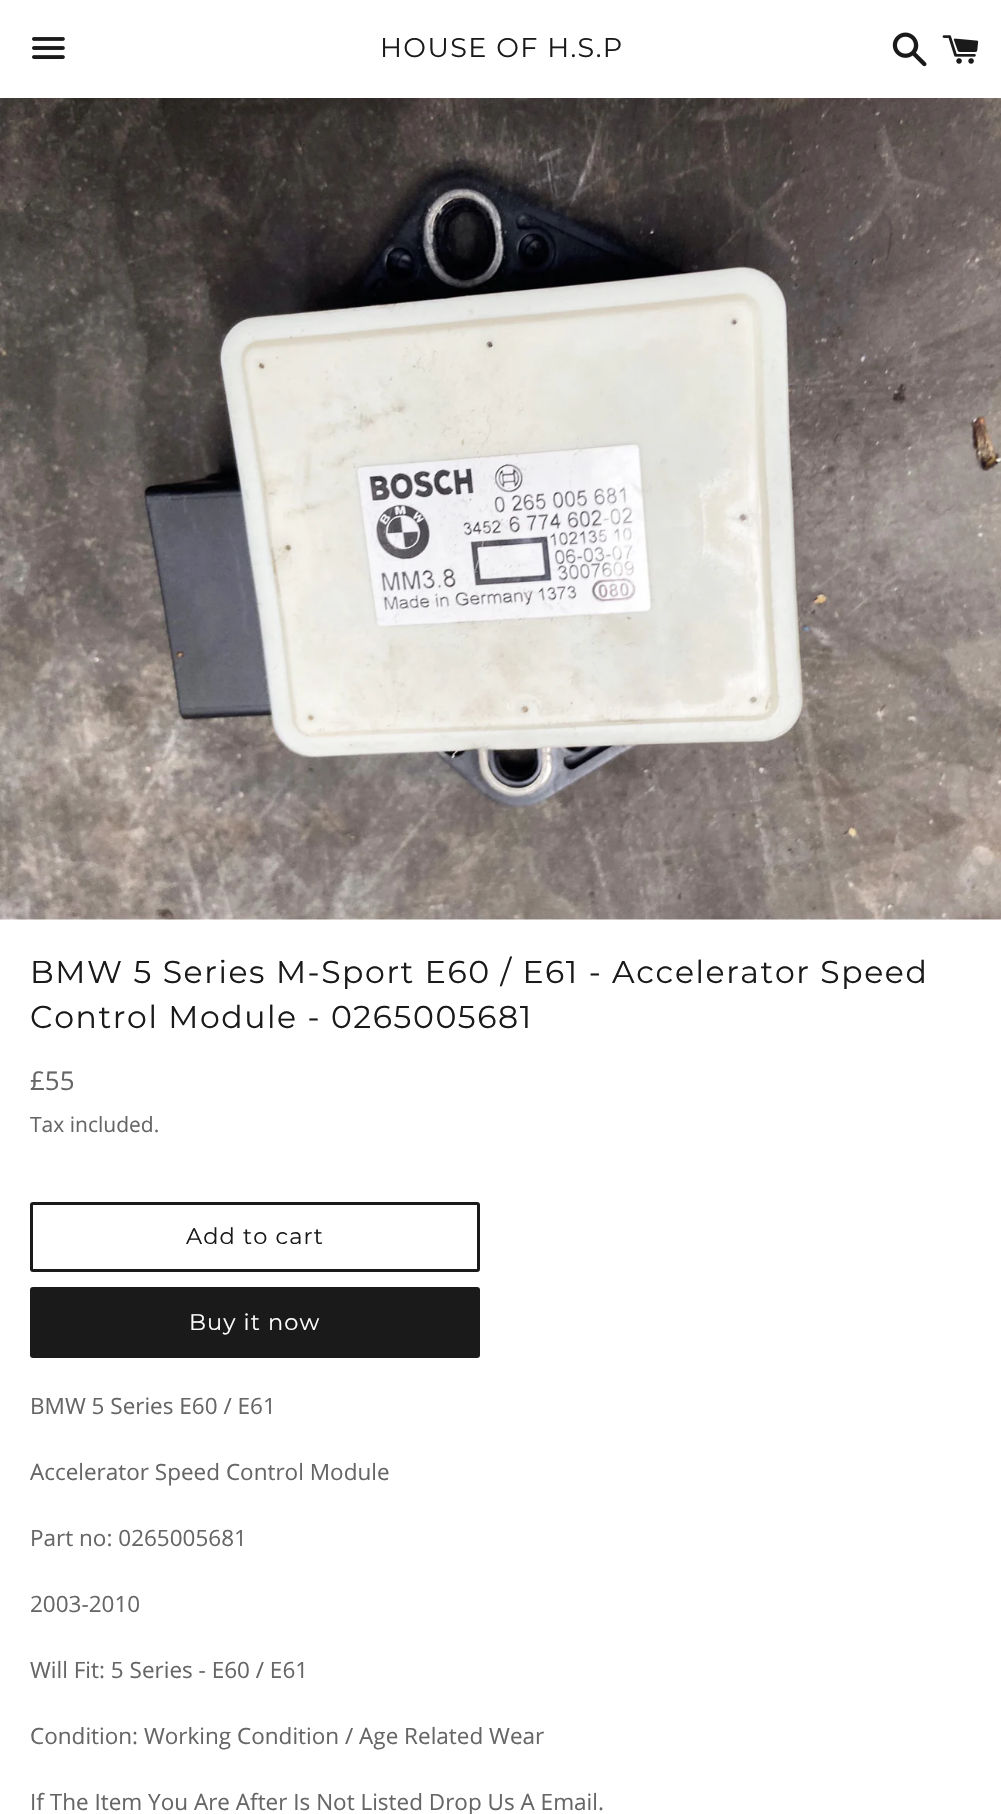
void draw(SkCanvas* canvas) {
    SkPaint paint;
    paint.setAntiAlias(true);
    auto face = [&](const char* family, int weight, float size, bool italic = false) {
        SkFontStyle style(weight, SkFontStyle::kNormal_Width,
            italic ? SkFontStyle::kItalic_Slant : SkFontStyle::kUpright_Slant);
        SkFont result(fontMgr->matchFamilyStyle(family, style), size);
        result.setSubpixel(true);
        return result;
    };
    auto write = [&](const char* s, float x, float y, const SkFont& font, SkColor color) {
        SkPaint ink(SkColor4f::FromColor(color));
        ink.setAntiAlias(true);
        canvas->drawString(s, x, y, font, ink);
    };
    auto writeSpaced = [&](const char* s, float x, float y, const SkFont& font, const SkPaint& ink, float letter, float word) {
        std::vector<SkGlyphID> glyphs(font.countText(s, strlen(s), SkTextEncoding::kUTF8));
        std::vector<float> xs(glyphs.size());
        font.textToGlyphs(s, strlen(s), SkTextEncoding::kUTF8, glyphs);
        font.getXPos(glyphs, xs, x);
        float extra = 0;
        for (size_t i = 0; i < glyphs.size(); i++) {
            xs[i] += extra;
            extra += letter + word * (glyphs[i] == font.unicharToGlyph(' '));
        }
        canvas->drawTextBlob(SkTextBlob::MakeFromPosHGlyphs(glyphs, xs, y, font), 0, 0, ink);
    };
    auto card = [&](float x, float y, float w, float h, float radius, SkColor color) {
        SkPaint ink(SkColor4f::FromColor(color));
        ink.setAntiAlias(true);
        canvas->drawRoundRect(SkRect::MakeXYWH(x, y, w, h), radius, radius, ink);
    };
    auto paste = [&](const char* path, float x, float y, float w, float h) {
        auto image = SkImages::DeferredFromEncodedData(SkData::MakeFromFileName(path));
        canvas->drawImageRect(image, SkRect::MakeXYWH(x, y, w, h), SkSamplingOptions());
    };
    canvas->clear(SK_ColorWHITE);
    paste("pic1.png", 32, 37, 33, 22);
    auto kFont1 = face("Montserrat", 400, 27);
    paint.setColor(SkColorSetRGB(26, 26, 26));
    writeSpaced("HOUSE OF H.S.P", 380, 57, kFont1, paint, 1.4f, 0);
    paste("pic2.png", 892, 32, 35, 35);
    paste("pic3.png", 942, 35, 37, 29);
    paste("pic4.png", 0, 98, 1001, 822);
    auto kFont2 = face("Montserrat", 400, 31.5f);
    writeSpaced("BMW 5 Series M-Sport E60 / E61 - Accelerator Speed", 30, 983, kFont2, paint, 1.58f, 0);
    writeSpaced("Control Module - 0265005681", 30, 1028, kFont2, paint, 1.58f, 0);
    auto kFont3 = face("Open Sans", 400, 26);
    write("£55", 30, 1090, kFont3, SkColorSetRGB(102, 102, 102));
    auto kFont4 = face("Open Sans", 400, 21);
    write("Tax included.", 30, 1132, kFont4, SkColorSetRGB(102, 102, 102));
    paint.setStyle(SkPaint::kStroke_Style);
    paint.setStrokeWidth(3);
    canvas->drawRoundRect(SkRect::MakeXYWH(31.5f, 1203.5f, 447, 67), 1.5f, 1.5f, paint);
    auto kFont5 = face("Montserrat", 400, 22.5f);
    paint.setStyle(SkPaint::kFill_Style);
    writeSpaced("Add to cart", 186, 1244, kFont5, paint, 1.1f, 0);
    card(30, 1287, 450, 71, 3, SkColorSetRGB(26, 26, 26));
    paint.setColor(SK_ColorWHITE);
    writeSpaced("Buy it now", 189, 1330, kFont5, paint, 1.1f, 0);
    auto kFont6 = face("Open Sans", 400, 22.5f);
    write("BMW 5 Series E60 / E61", 30, 1414, kFont6, SkColorSetRGB(102, 102, 102));
    write("Accelerator Speed Control Module", 30, 1480, kFont6, SkColorSetRGB(102, 102, 102));
    write("Part no: 0265005681", 30, 1546, kFont6, SkColorSetRGB(102, 102, 102));
    write("2003-2010", 30, 1612, kFont6, SkColorSetRGB(102, 102, 102));
    write("Will Fit: 5 Series - E60 / E61", 30, 1678, kFont6, SkColorSetRGB(102, 102, 102));
    write("Condition: Working Condition / Age Related Wear", 30, 1744, kFont6, SkColorSetRGB(102, 102, 102));
    write("If The Item You Are After Is Not Listed Drop Us A Email.", 30, 1810, kFont6, SkColorSetRGB(102, 102, 102));
}
